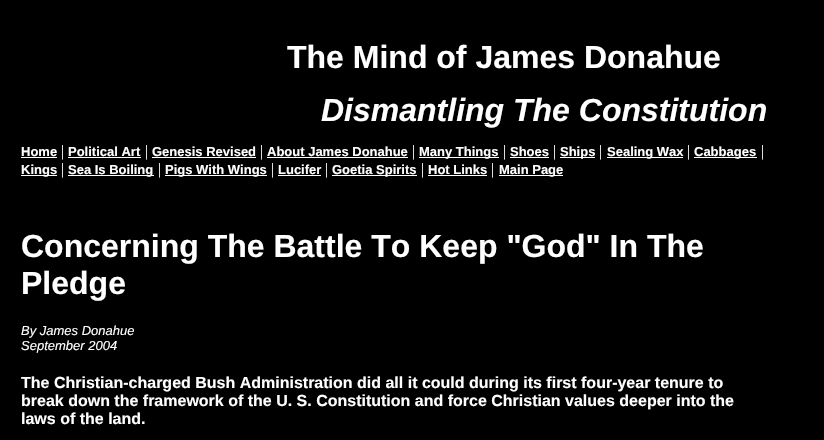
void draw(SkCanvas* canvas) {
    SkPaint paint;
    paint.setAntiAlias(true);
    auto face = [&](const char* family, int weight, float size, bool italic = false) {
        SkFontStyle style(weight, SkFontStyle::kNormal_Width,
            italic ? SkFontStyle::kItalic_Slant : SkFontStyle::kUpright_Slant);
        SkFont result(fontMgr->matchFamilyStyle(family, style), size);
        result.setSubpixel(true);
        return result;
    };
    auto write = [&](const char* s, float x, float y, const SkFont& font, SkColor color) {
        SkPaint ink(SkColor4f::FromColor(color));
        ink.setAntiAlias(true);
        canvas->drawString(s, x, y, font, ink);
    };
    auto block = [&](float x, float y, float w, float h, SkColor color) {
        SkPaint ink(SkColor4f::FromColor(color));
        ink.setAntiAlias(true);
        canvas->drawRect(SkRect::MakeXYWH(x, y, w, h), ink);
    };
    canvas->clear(SK_ColorBLACK);
    auto kFont1 = face("Liberation Sans", 700, 32);
    write("The Mind of James Donahue", 287, 68, kFont1, SK_ColorWHITE);
    auto kFont2 = face("Liberation Sans", 700, 32, true);
    write("Dismantling The Constitution", 321, 121, kFont2, SK_ColorWHITE);
    auto kFont3 = face("Liberation Sans", 700, 13);
    write("Home", 21, 156, kFont3, SK_ColorWHITE);
    block(21, 157, 36, 1, SK_ColorWHITE);
    auto kFont4 = face("Liberation Serif", 400, 16);
    write("|", 61, 156, kFont4, SK_ColorWHITE);
    write("Political Art", 68, 156, kFont3, SK_ColorWHITE);
    block(68, 157, 73, 1, SK_ColorWHITE);
    write("|", 145, 156, kFont4, SK_ColorWHITE);
    write("Genesis Revised", 152, 156, kFont3, SK_ColorWHITE);
    block(152, 157, 104, 1, SK_ColorWHITE);
    write("|", 260, 156, kFont4, SK_ColorWHITE);
    write("About James Donahue", 267, 156, kFont3, SK_ColorWHITE);
    block(267, 157, 141, 1, SK_ColorWHITE);
    write("|", 412, 156, kFont4, SK_ColorWHITE);
    block(419, 157, 80, 1, SK_ColorWHITE);
    write("Many Things", 419, 156, kFont3, SK_ColorWHITE);
    write("|", 503, 156, kFont4, SK_ColorWHITE);
    write("Shoes", 510, 156, kFont3, SK_ColorWHITE);
    block(510, 157, 39, 1, SK_ColorWHITE);
    write("|", 553, 156, kFont4, SK_ColorWHITE);
    block(560, 157, 35, 1, SK_ColorWHITE);
    write("Ships", 560, 156, kFont3, SK_ColorWHITE);
    write("|", 599, 156, kFont4, SK_ColorWHITE);
    block(607, 157, 76, 1, SK_ColorWHITE);
    write("Sealing Wax", 607, 156, kFont3, SK_ColorWHITE);
    write("|", 687, 156, kFont4, SK_ColorWHITE);
    block(694, 157, 63, 1, SK_ColorWHITE);
    write("Cabbages", 694, 156, kFont3, SK_ColorWHITE);
    write("|", 761, 156, kFont4, SK_ColorWHITE);
    block(21, 175, 36, 1, SK_ColorWHITE);
    write("Kings", 21, 174, kFont3, SK_ColorWHITE);
    write("|", 61, 174, kFont4, SK_ColorWHITE);
    block(68, 175, 86, 1, SK_ColorWHITE);
    write("Sea Is Boiling", 68, 174, kFont3, SK_ColorWHITE);
    write("|", 158, 174, kFont4, SK_ColorWHITE);
    block(165, 175, 102, 1, SK_ColorWHITE);
    write("Pigs With Wings", 165, 174, kFont3, SK_ColorWHITE);
    write("|", 271, 174, kFont4, SK_ColorWHITE);
    write("Lucifer", 278, 174, kFont3, SK_ColorWHITE);
    block(278, 175, 43, 1, SK_ColorWHITE);
    write("|", 325, 174, kFont4, SK_ColorWHITE);
    block(332, 175, 85, 1, SK_ColorWHITE);
    write("Goetia Spirits", 332, 174, kFont3, SK_ColorWHITE);
    write("|", 421, 174, kFont4, SK_ColorWHITE);
    write("Hot Links", 428, 174, kFont3, SK_ColorWHITE);
    block(428, 175, 59, 1, SK_ColorWHITE);
    write("|", 491, 174, kFont4, SK_ColorWHITE);
    block(499, 175, 64, 1, SK_ColorWHITE);
    write("Main Page", 499, 174, kFont3, SK_ColorWHITE);
    write("Concerning The Battle To Keep \"God\" In The", 21, 257, kFont1, SK_ColorWHITE);
    write("Pledge", 21, 294, kFont1, SK_ColorWHITE);
    auto kFont5 = face("Liberation Sans", 400, 13, true);
    write("By James Donahue", 21, 335, kFont5, SK_ColorWHITE);
    write("September 2004", 21, 350, kFont5, SK_ColorWHITE);
    auto kFont6 = face("Liberation Sans", 700, 16);
    write("The Christian-charged Bush Administration did all it could during its first four-year tenure to", 21, 388, kFont6, SK_ColorWHITE);
    write("break down the framework of the U. S. Constitution and force Christian values deeper into the", 21, 406, kFont6, SK_ColorWHITE);
    write("laws of the land.", 21, 424, kFont6, SK_ColorWHITE);
}
